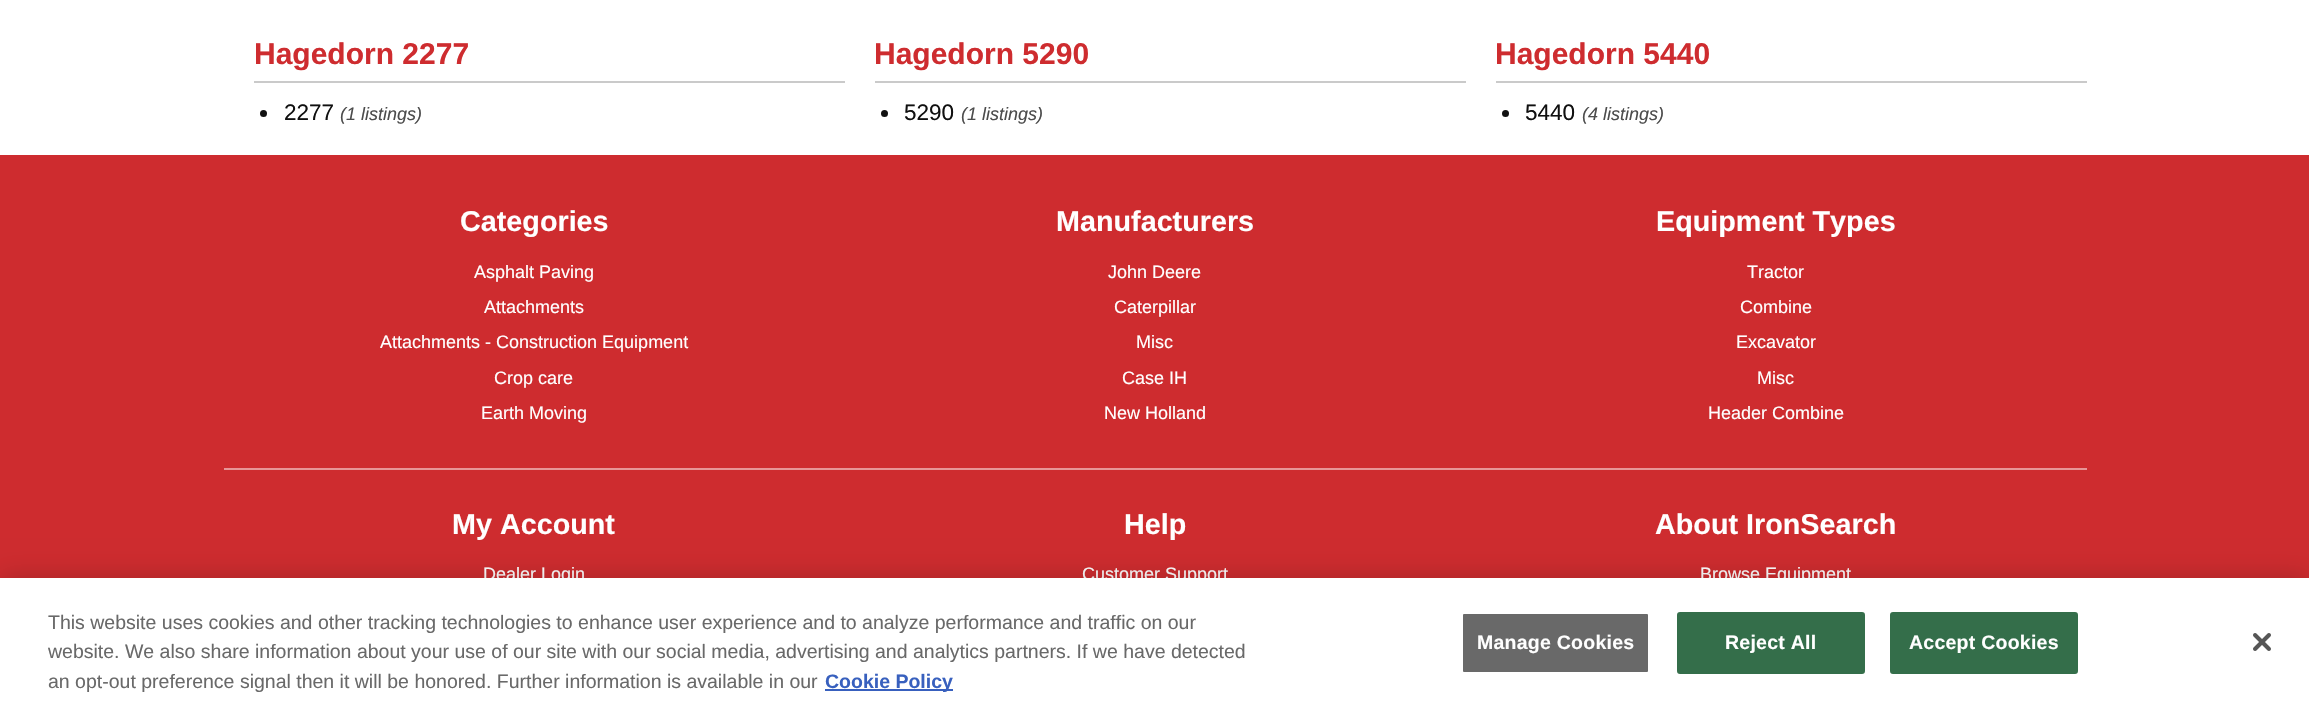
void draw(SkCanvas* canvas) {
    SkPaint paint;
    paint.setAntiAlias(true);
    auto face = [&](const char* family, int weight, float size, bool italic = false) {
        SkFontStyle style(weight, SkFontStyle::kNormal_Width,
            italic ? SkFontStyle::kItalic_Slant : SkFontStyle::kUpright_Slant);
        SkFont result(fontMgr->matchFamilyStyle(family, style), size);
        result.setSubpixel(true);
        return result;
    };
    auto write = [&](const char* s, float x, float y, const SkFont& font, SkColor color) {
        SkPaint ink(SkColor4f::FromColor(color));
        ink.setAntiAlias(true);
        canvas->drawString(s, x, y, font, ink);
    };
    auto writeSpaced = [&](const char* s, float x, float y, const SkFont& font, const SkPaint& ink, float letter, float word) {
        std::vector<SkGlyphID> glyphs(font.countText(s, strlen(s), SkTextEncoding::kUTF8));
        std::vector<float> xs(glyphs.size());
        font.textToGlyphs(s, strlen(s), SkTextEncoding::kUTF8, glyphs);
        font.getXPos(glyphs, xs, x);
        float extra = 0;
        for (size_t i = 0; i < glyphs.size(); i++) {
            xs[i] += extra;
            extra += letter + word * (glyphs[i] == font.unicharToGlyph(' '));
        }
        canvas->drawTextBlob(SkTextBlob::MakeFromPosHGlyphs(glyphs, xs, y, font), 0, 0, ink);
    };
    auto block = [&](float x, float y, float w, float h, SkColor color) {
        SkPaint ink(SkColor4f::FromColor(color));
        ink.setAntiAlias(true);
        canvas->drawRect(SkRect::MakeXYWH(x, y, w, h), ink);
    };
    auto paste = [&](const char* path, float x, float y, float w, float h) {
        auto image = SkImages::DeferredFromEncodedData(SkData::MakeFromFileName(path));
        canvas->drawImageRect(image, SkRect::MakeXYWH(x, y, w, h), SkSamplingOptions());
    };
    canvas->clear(SK_ColorWHITE);
    block(254, 81, 591, 2, SkColorSetRGB(202, 202, 202));
    auto kFont1 = face("Liberation Sans", 700, 30);
    write("Hagedorn 2277", 254, 64, kFont1, SkColorSetRGB(206, 44, 47));
    paint.setColor(SkColorSetRGB(16, 16, 16));
    canvas->drawCircle(263.5f, 113.5f, 3.5f, paint);
    auto kFont2 = face("Liberation Sans", 400, 22.5f);
    write("2277", 284, 120, kFont2, SkColorSetRGB(16, 16, 16));
    auto kFont3 = face("Liberation Sans", 400, 18, true);
    write("(1 listings)", 340, 120, kFont3, SkColorSetRGB(76, 76, 76));
    block(875, 81, 591, 2, SkColorSetRGB(202, 202, 202));
    write("Hagedorn 5290", 874, 64, kFont1, SkColorSetRGB(206, 44, 47));
    canvas->drawCircle(884.5f, 113.5f, 3.5f, paint);
    write("5290", 904, 120, kFont2, SkColorSetRGB(16, 16, 16));
    write("(1 listings)", 961, 120, kFont3, SkColorSetRGB(76, 76, 76));
    block(1496, 81, 591, 2, SkColorSetRGB(202, 202, 202));
    write("Hagedorn 5440", 1495, 64, kFont1, SkColorSetRGB(206, 44, 47));
    canvas->drawCircle(1505.5f, 113.5f, 3.5f, paint);
    write("5440", 1525, 120, kFont2, SkColorSetRGB(16, 16, 16));
    write("(4 listings)", 1582, 120, kFont3, SkColorSetRGB(76, 76, 76));
    block(0, 155, 2309, 423, SkColorSetRGB(206, 44, 47));
    auto kFont4 = face("Liberation Sans", 700, 28.75f);
    write("Categories", 460, 231, kFont4, SK_ColorWHITE);
    auto kFont5 = face("Liberation Sans", 400, 18);
    write("Asphalt Paving", 474, 278, kFont5, SK_ColorWHITE);
    write("Attachments", 484, 313, kFont5, SK_ColorWHITE);
    write("Attachments - Construction Equipment", 380, 348, kFont5, SK_ColorWHITE);
    write("Crop care", 494, 384, kFont5, SK_ColorWHITE);
    write("Earth Moving", 481, 419, kFont5, SK_ColorWHITE);
    write("Manufacturers", 1056, 231, kFont4, SK_ColorWHITE);
    write("John Deere", 1108, 278, kFont5, SK_ColorWHITE);
    write("Caterpillar", 1114, 313, kFont5, SK_ColorWHITE);
    write("Misc", 1136, 348, kFont5, SK_ColorWHITE);
    write("Case IH", 1122, 384, kFont5, SK_ColorWHITE);
    write("New Holland", 1104, 419, kFont5, SK_ColorWHITE);
    write("Equipment Types", 1656, 231, kFont4, SK_ColorWHITE);
    write("Tractor", 1747, 278, kFont5, SK_ColorWHITE);
    write("Combine", 1740, 313, kFont5, SK_ColorWHITE);
    write("Excavator", 1736, 348, kFont5, SK_ColorWHITE);
    write("Misc", 1757, 384, kFont5, SK_ColorWHITE);
    write("Header Combine", 1708, 419, kFont5, SK_ColorWHITE);
    block(224, 468, 1863, 2, SkColorSetRGB(231, 150, 151));
    write("My Account", 452, 534, kFont4, SK_ColorWHITE);
    write("Dealer Login", 483, 580, kFont5, SK_ColorWHITE);
    write("Help", 1124, 534, kFont4, SK_ColorWHITE);
    write("Customer Support", 1082, 580, kFont5, SK_ColorWHITE);
    write("About IronSearch", 1655, 534, kFont4, SK_ColorWHITE);
    write("Browse Equipment", 1700, 580, kFont5, SK_ColorWHITE);
    paint.setColor(SkColorSetARGB(51, 0, 0, 0));
    paint.setMaskFilter(SkMaskFilter::MakeBlur(kNormal_SkBlurStyle, 13.5f));
    canvas->drawRect(SkRect::MakeXYWH(0, 578, 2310, 133), paint);
    paint.setMaskFilter(nullptr);
    block(0, 578, 2309, 133, SK_ColorWHITE);
    auto kFont6 = face("Liberation Sans", 400, 19.5f);
    write("This website uses cookies and other tracking technologies to enhance user experience and to analyze performance and traffic on our", 48, 629, kFont6, SkColorSetRGB(105, 105, 105));
    write("website. We also share information about your use of our site with our social media, advertising and analytics partners. If we have detected", 48, 658, kFont6, SkColorSetRGB(105, 105, 105));
    write("an opt-out preference signal then it will be honored. Further information is available in our", 48, 688, kFont6, SkColorSetRGB(105, 105, 105));
    block(825, 689, 128, 2, SkColorSetRGB(56, 96, 190));
    auto kFont7 = face("Liberation Sans", 700, 19.5f);
    write("Cookie Policy", 825, 688, kFont7, SkColorSetRGB(56, 96, 190));
    paint.setColor(SkColorSetRGB(105, 105, 105));
    canvas->drawRoundRect(SkRect::MakeXYWH(1462, 613, 187, 60), 2, 2, paint);
    paint.setStyle(SkPaint::kStroke_Style);
    paint.setStrokeWidth(2);
    paint.setColor(SK_ColorWHITE);
    canvas->drawRoundRect(SkRect::MakeXYWH(1462, 613, 187, 60), 2, 2, paint);
    paint.setStyle(SkPaint::kFill_Style);
    writeSpaced("Manage Cookies", 1477, 649, kFont7, paint, 0.25f, 0);
    paint.setColor(SkColorSetRGB(52, 110, 74));
    canvas->drawRoundRect(SkRect::MakeXYWH(1678, 613, 186, 60), 2, 2, paint);
    paint.setStyle(SkPaint::kStroke_Style);
    canvas->drawRoundRect(SkRect::MakeXYWH(1678, 613, 186, 60), 2, 2, paint);
    paint.setStyle(SkPaint::kFill_Style);
    paint.setColor(SK_ColorWHITE);
    writeSpaced("Reject All", 1725, 649, kFont7, paint, 0.25f, 0);
    paint.setColor(SkColorSetRGB(52, 110, 74));
    canvas->drawRoundRect(SkRect::MakeXYWH(1891, 613, 186, 60), 2, 2, paint);
    paint.setStyle(SkPaint::kStroke_Style);
    canvas->drawRoundRect(SkRect::MakeXYWH(1891, 613, 186, 60), 2, 2, paint);
    paint.setStyle(SkPaint::kFill_Style);
    paint.setColor(SK_ColorWHITE);
    writeSpaced("Accept Cookies", 1909, 649, kFont7, paint, 0.25f, 0);
    paste("pic1.png", 2253, 633, 18, 18);
}
